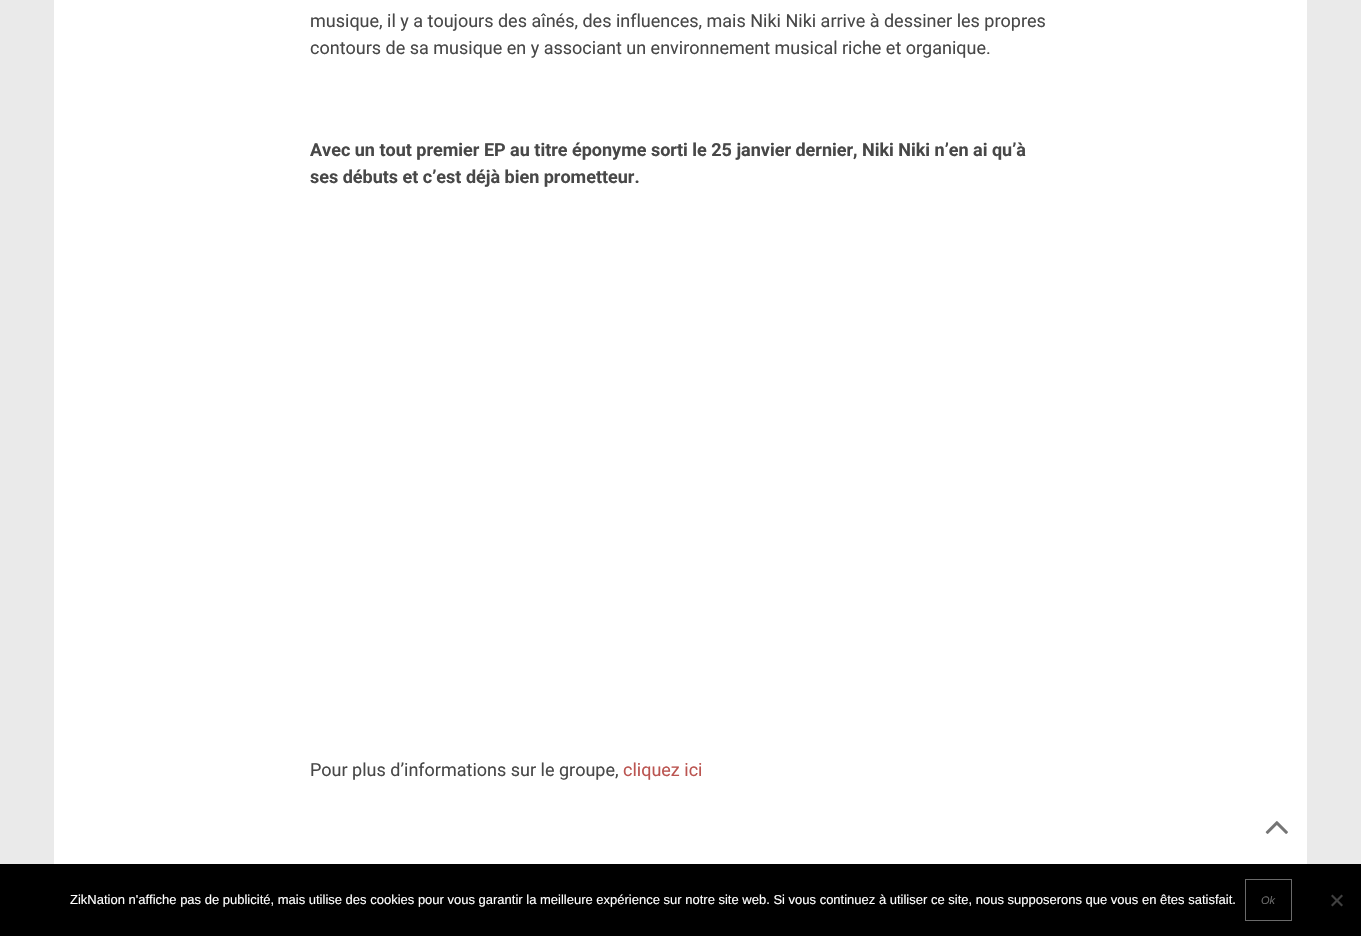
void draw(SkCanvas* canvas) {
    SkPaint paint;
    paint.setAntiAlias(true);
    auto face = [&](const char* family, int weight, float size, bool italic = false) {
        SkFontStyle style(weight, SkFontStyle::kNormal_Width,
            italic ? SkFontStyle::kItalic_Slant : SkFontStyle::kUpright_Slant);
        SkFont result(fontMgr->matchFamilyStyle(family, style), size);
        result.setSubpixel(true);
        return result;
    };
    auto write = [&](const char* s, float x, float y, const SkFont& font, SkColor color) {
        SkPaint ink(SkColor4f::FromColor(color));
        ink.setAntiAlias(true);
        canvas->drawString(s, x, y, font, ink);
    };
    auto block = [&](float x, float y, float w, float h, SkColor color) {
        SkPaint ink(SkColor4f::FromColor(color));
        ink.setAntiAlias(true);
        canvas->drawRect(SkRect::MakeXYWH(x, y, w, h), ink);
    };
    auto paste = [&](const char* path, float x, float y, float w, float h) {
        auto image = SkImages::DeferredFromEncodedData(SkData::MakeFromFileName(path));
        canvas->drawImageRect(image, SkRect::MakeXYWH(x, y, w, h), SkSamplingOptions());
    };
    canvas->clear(SkColorSetRGB(234, 234, 234));
    block(54, 0, 1253, 864, SK_ColorWHITE);
    auto kFont1 = face("Roboto", 400, 18);
    write("musique, il y a toujours des aînés, des influences, mais Niki Niki arrive à dessiner les propres", 310, 27, kFont1, SkColorSetRGB(72, 72, 72));
    write("contours de sa musique en y associant un environnement musical riche et organique.", 310, 54, kFont1, SkColorSetRGB(72, 72, 72));
    auto kFont2 = face("Roboto", 700, 18);
    write("Avec un tout premier EP au titre éponyme sorti le 25 janvier dernier, Niki Niki n’en ai qu’à", 310, 156, kFont2, SkColorSetRGB(72, 72, 72));
    write("ses débuts et c’est déjà bien prometteur.", 310, 183, kFont2, SkColorSetRGB(72, 72, 72));
    write("Pour plus d’informations sur le groupe,", 310, 776, kFont1, SkColorSetRGB(72, 72, 72));
    write("cliquez ici", 623, 776, kFont1, SkColorSetRGB(187, 85, 81));
    paste("pic1.png", 1265, 821, 23, 13);
    block(0, 864, 1361, 72, SK_ColorBLACK);
    auto kFont3 = face("Liberation Sans", 400, 13);
    write("ZikNation n'affiche pas de publicité, mais utilise des cookies pour vous garantir la meilleure expérience sur notre site web. Si vous continuez à utiliser ce site, nous supposerons que vous en êtes satisfait.", 70, 904, kFont3, SK_ColorWHITE);
    paint.setStyle(SkPaint::kStroke_Style);
    paint.setStrokeWidth(1);
    paint.setColor(SkColorSetRGB(106, 106, 106));
    canvas->drawRect(SkRect::MakeXYWH(1245.5f, 879.5f, 46, 41), paint);
    auto kFont4 = face("Liberation Sans", 400, 11, true);
    write("Ok", 1261, 904, kFont4, SkColorSetRGB(106, 106, 106));
    paint.setStyle(SkPaint::kFill_Style);
    paint.setColor(SkColorSetRGB(64, 64, 64));
    canvas->drawPath(SkPathBuilder().moveTo(1341.5f, 894.5f).lineTo(1343, 896).lineTo(1332.5f, 906.5f).lineTo(1331, 905).close().detach(), paint);
    canvas->drawPath(SkPathBuilder().moveTo(1331, 896).lineTo(1332.5f, 894.5f).lineTo(1343, 905).lineTo(1341.5f, 906.5f).close().detach(), paint);
}
